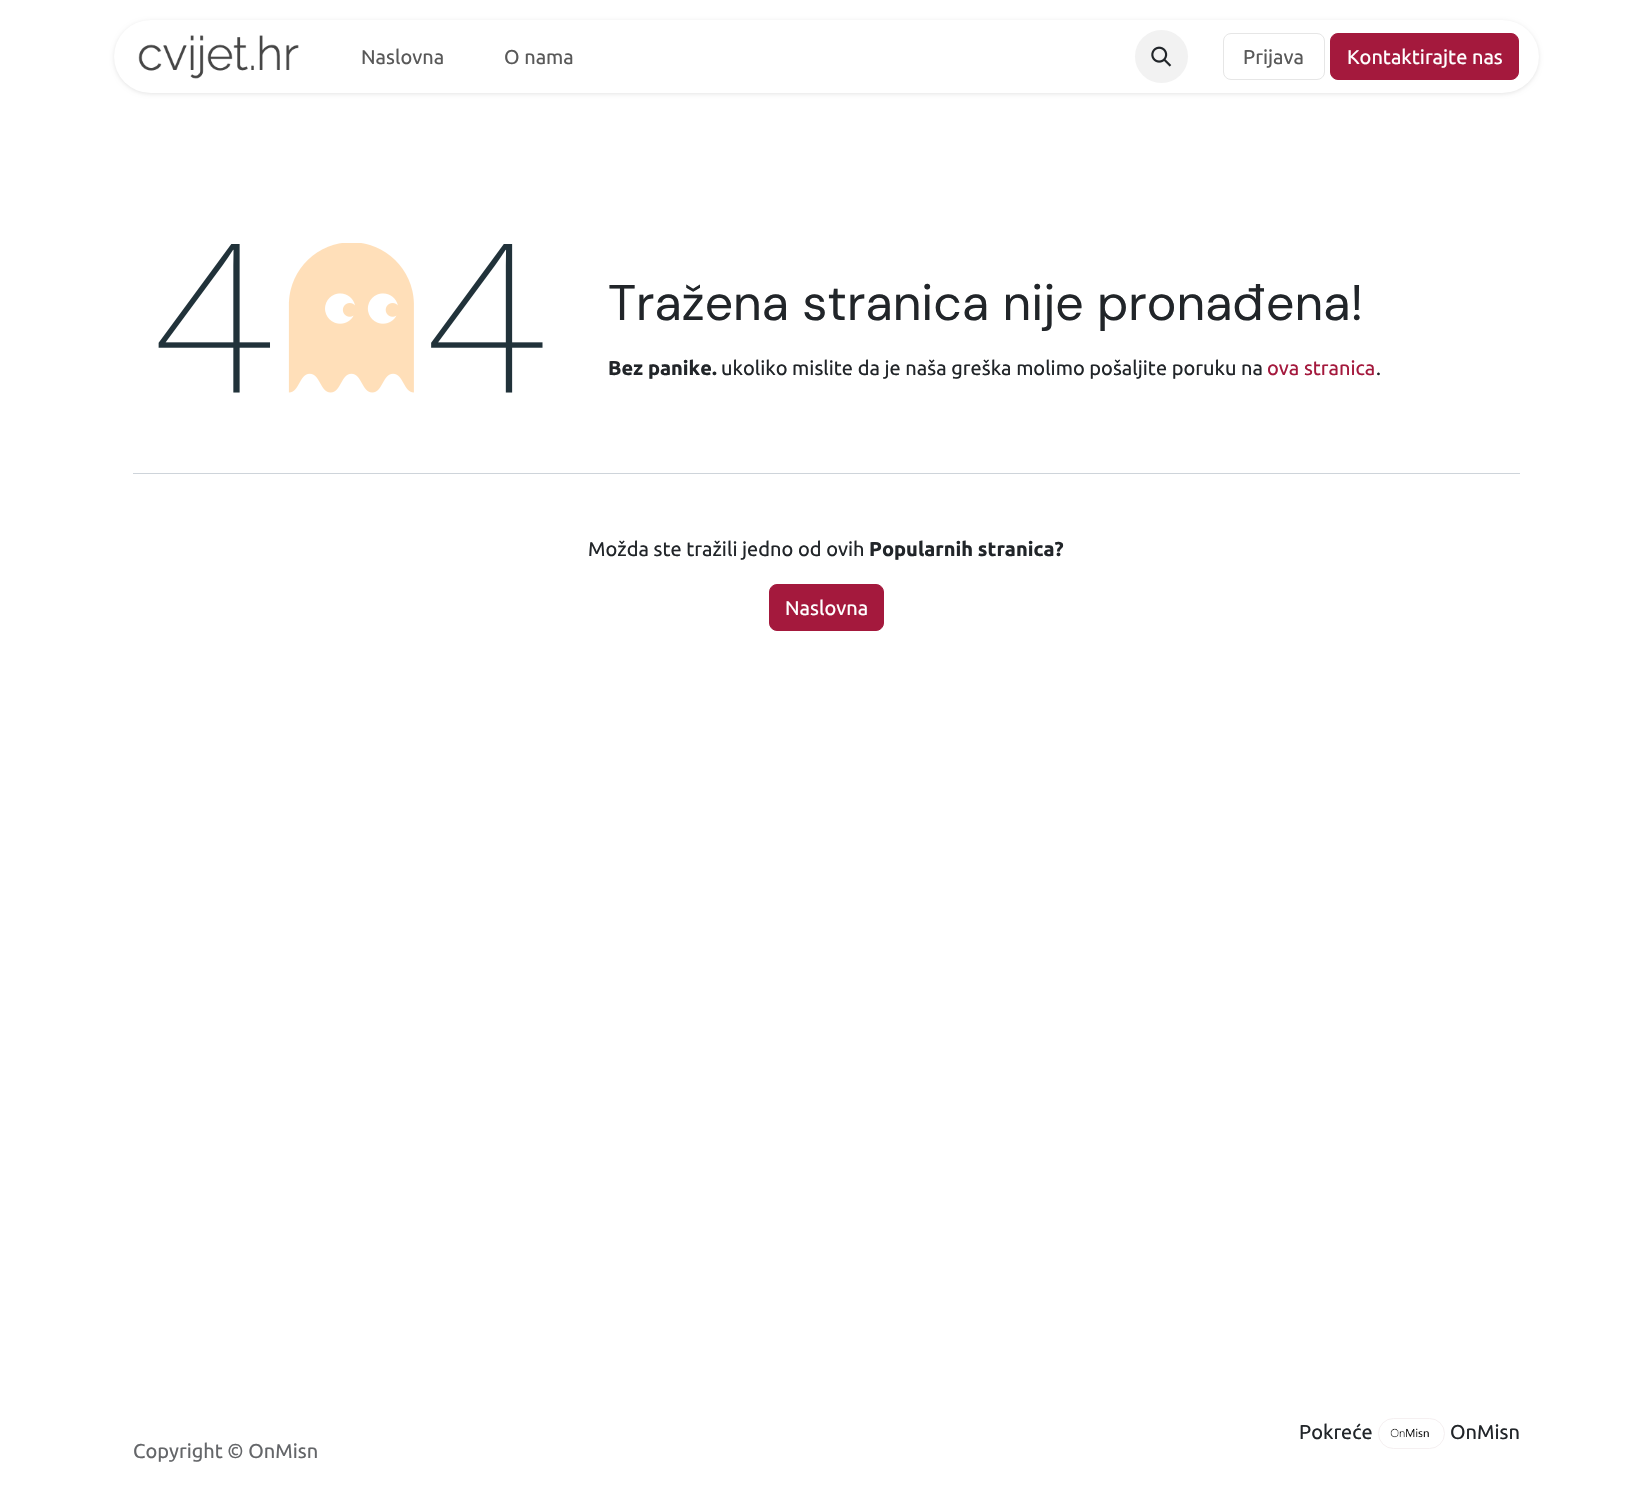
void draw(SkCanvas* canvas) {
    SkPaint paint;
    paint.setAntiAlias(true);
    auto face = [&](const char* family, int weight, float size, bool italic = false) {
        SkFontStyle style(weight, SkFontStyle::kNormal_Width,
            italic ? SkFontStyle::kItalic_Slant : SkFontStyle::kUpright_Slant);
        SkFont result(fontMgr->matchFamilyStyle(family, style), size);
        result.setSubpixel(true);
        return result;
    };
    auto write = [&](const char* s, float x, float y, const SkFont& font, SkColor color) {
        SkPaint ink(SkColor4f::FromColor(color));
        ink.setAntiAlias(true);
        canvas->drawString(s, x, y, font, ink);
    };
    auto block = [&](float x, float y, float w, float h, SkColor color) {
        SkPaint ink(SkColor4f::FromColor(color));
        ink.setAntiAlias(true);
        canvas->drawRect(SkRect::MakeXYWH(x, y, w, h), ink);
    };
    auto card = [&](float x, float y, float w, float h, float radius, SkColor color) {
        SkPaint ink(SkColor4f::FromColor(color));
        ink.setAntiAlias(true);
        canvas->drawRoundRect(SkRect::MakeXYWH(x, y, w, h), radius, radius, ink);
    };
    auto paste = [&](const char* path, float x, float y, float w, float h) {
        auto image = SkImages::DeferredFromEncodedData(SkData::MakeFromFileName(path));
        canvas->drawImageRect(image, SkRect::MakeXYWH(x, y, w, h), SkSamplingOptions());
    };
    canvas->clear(SK_ColorWHITE);
    paint.setColor(SkColorSetARGB(26, 0, 0, 0));
    paint.setMaskFilter(SkMaskFilter::MakeBlur(kNormal_SkBlurStyle, 2));
    canvas->drawRoundRect(SkRect::MakeXYWH(114, 21, 1425, 73), 36.5f, 36.5f, paint);
    paint.setMaskFilter(nullptr);
    card(114, 20, 1425, 73, 36.5f, SK_ColorWHITE);
    paste("pic1.png", 138, 35, 161, 44);
    auto kFont1 = face("Ubuntu", 400, 20);
    write("Naslovna", 361, 64, kFont1, SkColorSetRGB(89, 89, 89));
    write("O nama", 504, 64, kFont1, SkColorSetRGB(89, 89, 89));
    paint.setColor(SkColorSetRGB(242, 242, 242));
    canvas->drawCircle(1161.5f, 56.5f, 26.5f, paint);
    paste("pic2.png", 1151, 46, 21, 21);
    paint.setStyle(SkPaint::kStroke_Style);
    paint.setStrokeWidth(1);
    paint.setColor(SkColorSetRGB(230, 230, 230));
    canvas->drawRoundRect(SkRect::MakeXYWH(1223.5f, 33.5f, 101, 46), 7.5f, 7.5f, paint);
    write("Prijava", 1243, 64, kFont1, SkColorSetRGB(89, 89, 89));
    paint.setStyle(SkPaint::kFill_Style);
    paint.setColor(SkColorSetRGB(164, 25, 61));
    canvas->drawRoundRect(SkRect::MakeXYWH(1330.5f, 33.5f, 188, 46), 7.5f, 7.5f, paint);
    paint.setStyle(SkPaint::kStroke_Style);
    canvas->drawRoundRect(SkRect::MakeXYWH(1330.5f, 33.5f, 188, 46), 7.5f, 7.5f, paint);
    write("Kontaktirajte nas", 1347, 64, kFont1, SK_ColorWHITE);
    paste("pic3.png", 158, 243, 385, 150);
    auto kFont2 = face("DM Sans", 400, 50);
    write("Tražena stranica nije pronađena!", 608, 320, kFont2, SkColorSetRGB(33, 37, 41));
    auto kFont3 = face("Ubuntu", 700, 20);
    write("Bez panike.", 608, 375, kFont3, SkColorSetRGB(33, 37, 41));
    write("ukoliko mislite da je naša greška molimo pošaljite poruku na", 721, 375, kFont1, SkColorSetRGB(33, 37, 41));
    write("ova stranica", 1267, 375, kFont1, SkColorSetRGB(164, 25, 61));
    write(".", 1376, 375, kFont1, SkColorSetRGB(33, 37, 41));
    block(133, 473, 1387, 1, SkColorSetRGB(206, 212, 218));
    write("Možda ste tražili jedno od ovih", 588, 556, kFont1, SkColorSetRGB(33, 37, 41));
    write("Popularnih stranica?", 869, 556, kFont3, SkColorSetRGB(33, 37, 41));
    paint.setStyle(SkPaint::kFill_Style);
    canvas->drawRoundRect(SkRect::MakeXYWH(769.5f, 584.5f, 114, 46), 7.5f, 7.5f, paint);
    paint.setStyle(SkPaint::kStroke_Style);
    canvas->drawRoundRect(SkRect::MakeXYWH(769.5f, 584.5f, 114, 46), 7.5f, 7.5f, paint);
    write("Naslovna", 785, 615, kFont1, SK_ColorWHITE);
    write("Pokreće", 1299, 1439, kFont1, SkColorSetRGB(33, 37, 41));
    paint.setColor(SkColorSetRGB(245, 240, 241));
    canvas->drawRoundRect(SkRect::MakeXYWH(1378.5f, 1418.5f, 66, 30), 15, 15, paint);
    paste("pic4.png", 1390, 1428, 39, 10);
    write("OnMisn", 1450, 1439, kFont1, SkColorSetRGB(33, 37, 41));
    write("Copyright © OnMisn", 133, 1458, kFont1, SkColorSetRGB(100, 102, 105));
}
